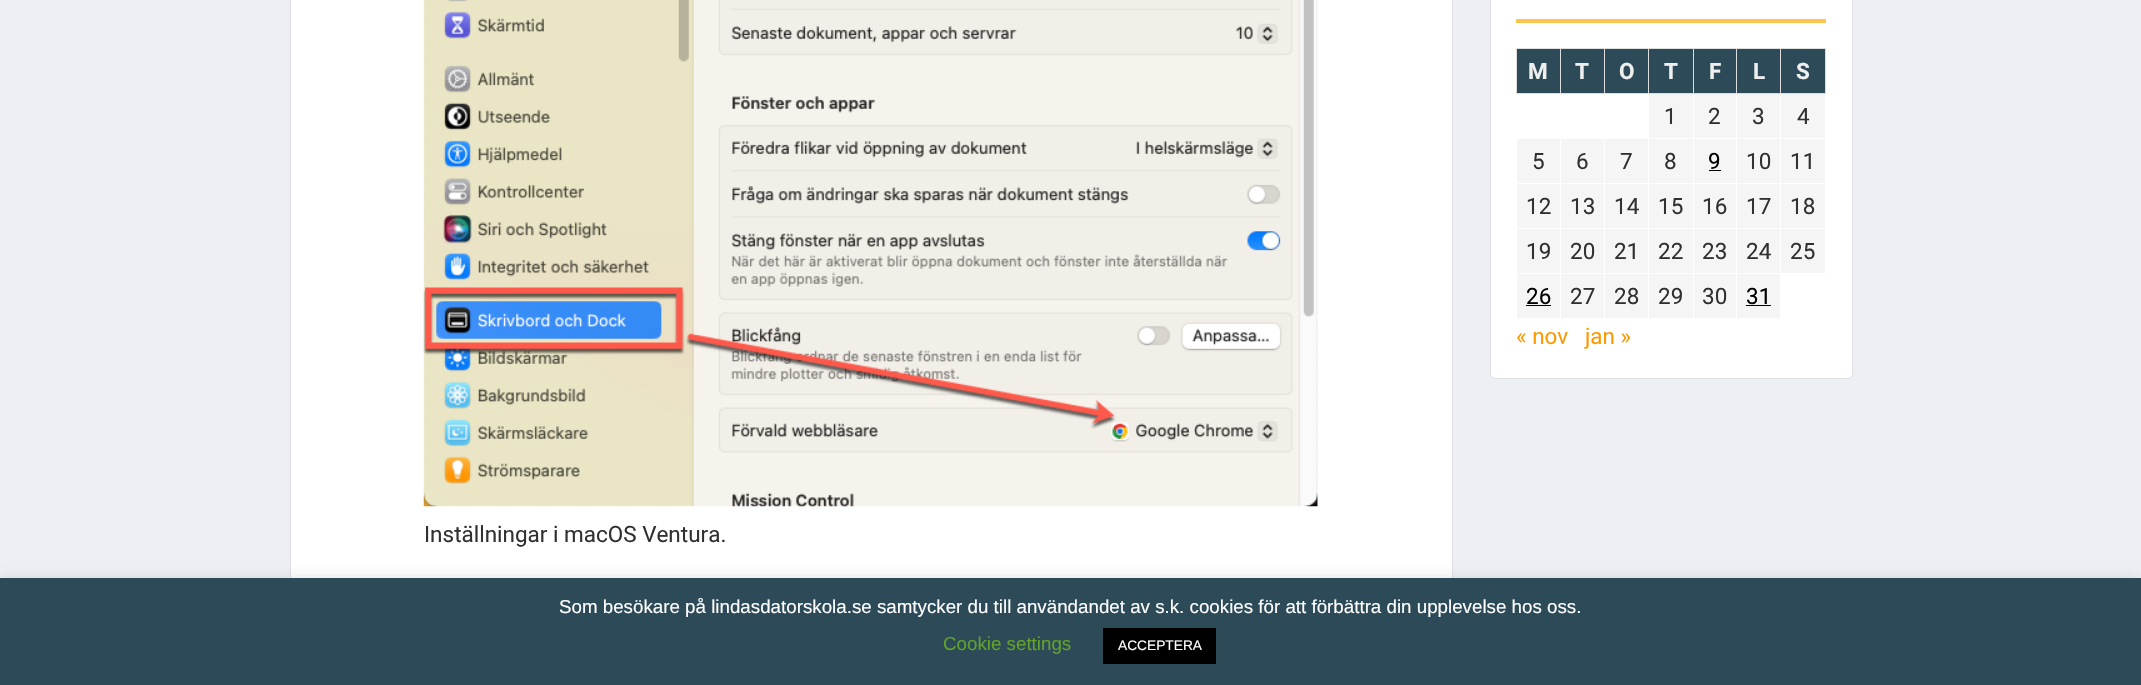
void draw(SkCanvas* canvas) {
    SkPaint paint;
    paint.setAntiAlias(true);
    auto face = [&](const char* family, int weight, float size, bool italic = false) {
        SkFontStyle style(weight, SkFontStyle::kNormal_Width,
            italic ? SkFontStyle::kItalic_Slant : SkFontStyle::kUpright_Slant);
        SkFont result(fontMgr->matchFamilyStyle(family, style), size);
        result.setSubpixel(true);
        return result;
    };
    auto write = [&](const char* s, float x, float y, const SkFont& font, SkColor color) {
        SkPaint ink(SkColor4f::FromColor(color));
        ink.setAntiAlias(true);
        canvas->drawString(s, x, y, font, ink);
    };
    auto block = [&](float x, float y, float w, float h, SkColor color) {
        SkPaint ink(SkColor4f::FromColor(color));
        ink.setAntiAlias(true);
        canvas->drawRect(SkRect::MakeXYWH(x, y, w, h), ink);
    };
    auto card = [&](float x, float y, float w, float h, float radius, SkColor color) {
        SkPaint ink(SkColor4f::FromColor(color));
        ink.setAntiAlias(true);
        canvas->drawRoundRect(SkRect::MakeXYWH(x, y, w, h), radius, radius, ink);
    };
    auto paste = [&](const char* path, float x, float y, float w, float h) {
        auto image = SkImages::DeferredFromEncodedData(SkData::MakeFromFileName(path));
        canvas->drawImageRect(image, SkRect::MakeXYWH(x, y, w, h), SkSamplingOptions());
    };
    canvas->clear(SkColorSetRGB(236, 240, 245));
    card(1490, -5, 363, 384, 5, SK_ColorWHITE);
    paint.setStyle(SkPaint::kStroke_Style);
    paint.setStrokeWidth(1);
    paint.setColor(SkColorSetARGB(31, 0, 0, 0));
    canvas->drawRoundRect(SkRect::MakeXYWH(1490.5f, -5.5f, 362, 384), 4.5f, 4.5f, paint);
    block(1516, 19, 310, 4, SkColorSetRGB(255, 196, 74));
    block(1517, 49, 43, 44, SkColorSetRGB(44, 74, 88));
    block(1780, 48, 46, 1, SkColorSetRGB(221, 221, 221));
    block(1825, 48, 1, 46, SkColorSetRGB(221, 221, 221));
    block(1780, 93, 46, 1, SkColorSetRGB(221, 221, 221));
    block(1780, 48, 1, 46, SkColorSetRGB(221, 221, 221));
    block(1736, 48, 45, 1, SkColorSetRGB(221, 221, 221));
    block(1736, 93, 45, 1, SkColorSetRGB(221, 221, 221));
    block(1736, 48, 1, 46, SkColorSetRGB(221, 221, 221));
    block(1693, 48, 45, 1, SkColorSetRGB(221, 221, 221));
    block(1693, 93, 45, 1, SkColorSetRGB(221, 221, 221));
    block(1693, 48, 1, 46, SkColorSetRGB(221, 221, 221));
    block(1648, 48, 46, 1, SkColorSetRGB(221, 221, 221));
    block(1648, 93, 46, 1, SkColorSetRGB(221, 221, 221));
    block(1648, 48, 1, 46, SkColorSetRGB(221, 221, 221));
    block(1604, 48, 45, 1, SkColorSetRGB(221, 221, 221));
    block(1604, 93, 45, 1, SkColorSetRGB(221, 221, 221));
    block(1604, 48, 1, 46, SkColorSetRGB(221, 221, 221));
    block(1560, 48, 45, 1, SkColorSetRGB(221, 221, 221));
    block(1560, 93, 45, 1, SkColorSetRGB(221, 221, 221));
    block(1560, 48, 1, 46, SkColorSetRGB(221, 221, 221));
    block(1516, 48, 45, 1, SkColorSetRGB(221, 221, 221));
    block(1516, 93, 45, 1, SkColorSetRGB(221, 221, 221));
    block(1516, 48, 1, 46, SkColorSetRGB(221, 221, 221));
    auto kFont1 = face("Roboto", 700, 22.5f);
    write("M", 1528, 79, kFont1, SkColorSetRGB(239, 239, 239));
    block(1561, 49, 43, 44, SkColorSetRGB(44, 74, 88));
    write("T", 1575, 79, kFont1, SkColorSetRGB(239, 239, 239));
    block(1605, 49, 43, 44, SkColorSetRGB(44, 74, 88));
    write("O", 1619, 79, kFont1, SkColorSetRGB(239, 239, 239));
    block(1649, 49, 44, 44, SkColorSetRGB(44, 74, 88));
    write("T", 1664, 79, kFont1, SkColorSetRGB(239, 239, 239));
    block(1694, 49, 42, 44, SkColorSetRGB(44, 74, 88));
    write("F", 1709, 79, kFont1, SkColorSetRGB(239, 239, 239));
    block(1737, 49, 43, 44, SkColorSetRGB(44, 74, 88));
    write("L", 1753, 79, kFont1, SkColorSetRGB(239, 239, 239));
    block(1781, 49, 44, 44, SkColorSetRGB(44, 74, 88));
    write("S", 1796, 79, kFont1, SkColorSetRGB(239, 239, 239));
    block(1649, 94, 44, 44, SkColorSetRGB(245, 245, 245));
    auto kFont2 = face("Roboto", 400, 22.5f);
    write("1", 1664, 124, kFont2, SkColorSetRGB(49, 49, 49));
    block(1694, 94, 42, 44, SkColorSetRGB(245, 245, 245));
    write("2", 1708, 124, kFont2, SkColorSetRGB(49, 49, 49));
    block(1737, 94, 43, 44, SkColorSetRGB(245, 245, 245));
    write("3", 1752, 124, kFont2, SkColorSetRGB(49, 49, 49));
    block(1781, 94, 44, 44, SkColorSetRGB(245, 245, 245));
    write("4", 1797, 124, kFont2, SkColorSetRGB(49, 49, 49));
    block(1517, 139, 43, 44, SkColorSetRGB(245, 245, 245));
    write("5", 1532, 169, kFont2, SkColorSetRGB(49, 49, 49));
    block(1561, 139, 43, 44, SkColorSetRGB(245, 245, 245));
    write("6", 1576, 169, kFont2, SkColorSetRGB(49, 49, 49));
    block(1605, 139, 43, 44, SkColorSetRGB(245, 245, 245));
    write("7", 1620, 169, kFont2, SkColorSetRGB(49, 49, 49));
    block(1649, 139, 44, 44, SkColorSetRGB(245, 245, 245));
    write("8", 1664, 169, kFont2, SkColorSetRGB(49, 49, 49));
    block(1694, 139, 42, 44, SkColorSetRGB(245, 245, 245));
    write("9", 1708, 169, kFont2, SK_ColorBLACK);
    block(1709, 170, 12, 1, SK_ColorBLACK);
    block(1737, 139, 43, 44, SkColorSetRGB(245, 245, 245));
    write("10", 1746, 169, kFont2, SkColorSetRGB(49, 49, 49));
    block(1781, 139, 44, 44, SkColorSetRGB(245, 245, 245));
    write("11", 1790, 169, kFont2, SkColorSetRGB(49, 49, 49));
    block(1517, 184, 43, 44, SkColorSetRGB(245, 245, 245));
    write("12", 1526, 214, kFont2, SkColorSetRGB(49, 49, 49));
    block(1561, 184, 43, 44, SkColorSetRGB(245, 245, 245));
    write("13", 1570, 214, kFont2, SkColorSetRGB(49, 49, 49));
    block(1605, 184, 43, 44, SkColorSetRGB(245, 245, 245));
    write("14", 1614, 214, kFont2, SkColorSetRGB(49, 49, 49));
    block(1649, 184, 44, 44, SkColorSetRGB(245, 245, 245));
    write("15", 1658, 214, kFont2, SkColorSetRGB(49, 49, 49));
    block(1694, 184, 42, 44, SkColorSetRGB(245, 245, 245));
    write("16", 1702, 214, kFont2, SkColorSetRGB(49, 49, 49));
    block(1737, 184, 43, 44, SkColorSetRGB(245, 245, 245));
    write("17", 1746, 214, kFont2, SkColorSetRGB(49, 49, 49));
    block(1781, 184, 44, 44, SkColorSetRGB(245, 245, 245));
    write("18", 1790, 214, kFont2, SkColorSetRGB(49, 49, 49));
    block(1517, 229, 43, 44, SkColorSetRGB(245, 245, 245));
    write("19", 1526, 259, kFont2, SkColorSetRGB(49, 49, 49));
    block(1561, 229, 43, 44, SkColorSetRGB(245, 245, 245));
    write("20", 1570, 259, kFont2, SkColorSetRGB(49, 49, 49));
    block(1605, 229, 43, 44, SkColorSetRGB(245, 245, 245));
    write("21", 1614, 259, kFont2, SkColorSetRGB(49, 49, 49));
    block(1649, 229, 44, 44, SkColorSetRGB(245, 245, 245));
    write("22", 1658, 259, kFont2, SkColorSetRGB(49, 49, 49));
    block(1694, 229, 42, 44, SkColorSetRGB(245, 245, 245));
    write("23", 1702, 259, kFont2, SkColorSetRGB(49, 49, 49));
    block(1737, 229, 43, 44, SkColorSetRGB(245, 245, 245));
    write("24", 1746, 259, kFont2, SkColorSetRGB(49, 49, 49));
    block(1781, 229, 44, 44, SkColorSetRGB(245, 245, 245));
    write("25", 1790, 259, kFont2, SkColorSetRGB(49, 49, 49));
    block(1517, 274, 43, 44, SkColorSetRGB(245, 245, 245));
    write("26", 1526, 304, kFont2, SK_ColorBLACK);
    block(1526, 305, 25, 1, SK_ColorBLACK);
    block(1561, 274, 43, 44, SkColorSetRGB(245, 245, 245));
    write("27", 1570, 304, kFont2, SkColorSetRGB(49, 49, 49));
    block(1605, 274, 43, 44, SkColorSetRGB(245, 245, 245));
    write("28", 1614, 304, kFont2, SkColorSetRGB(49, 49, 49));
    block(1649, 274, 44, 44, SkColorSetRGB(245, 245, 245));
    write("29", 1658, 304, kFont2, SkColorSetRGB(49, 49, 49));
    block(1694, 274, 42, 44, SkColorSetRGB(245, 245, 245));
    write("30", 1702, 304, kFont2, SkColorSetRGB(49, 49, 49));
    block(1737, 274, 43, 44, SkColorSetRGB(245, 245, 245));
    write("31", 1746, 304, kFont2, SK_ColorBLACK);
    block(1746, 305, 25, 1, SK_ColorBLACK);
    write("« nov", 1516, 344, kFont2, SkColorSetRGB(251, 153, 2));
    write("jan »", 1585, 344, kFont2, SkColorSetRGB(251, 153, 2));
    block(291, 0, 1161, 578, SK_ColorWHITE);
    paint.setColor(SkColorSetRGB(223, 223, 223));
    canvas->drawRect(SkRect::MakeXYWH(290.5f, -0.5f, 1162, 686), paint);
    paste("pic1.png", 423, 0, 895, 507);
    write("Inställningar i macOS Ventura.", 424, 542, kFont2, SkColorSetRGB(49, 49, 49));
    paint.setStyle(SkPaint::kFill_Style);
    paint.setColor(SkColorSetARGB(77, 172, 171, 171));
    paint.setMaskFilter(SkMaskFilter::MakeBlur(kNormal_SkBlurStyle, 6));
    canvas->drawRect(SkRect::MakeXYWH(0, 576, 2141, 108), paint);
    paint.setMaskFilter(nullptr);
    block(0, 578, 2141, 107, SkColorSetRGB(44, 74, 88));
    auto kFont3 = face("Liberation Sans", 400, 18.75f);
    write("Som besökare på lindasdatorskola.se samtycker du till användandet av s.k. cookies för att förbättra din upplevelse hos oss.", 559, 613, kFont3, SK_ColorWHITE);
    write("Cookie settings", 943, 650, kFont3, SkColorSetRGB(98, 163, 41));
    block(1103, 628, 113, 36, SK_ColorBLACK);
    auto kFont4 = face("Liberation Sans", 400, 13.75f);
    write("ACCEPTERA", 1118, 650, kFont4, SK_ColorWHITE);
}
